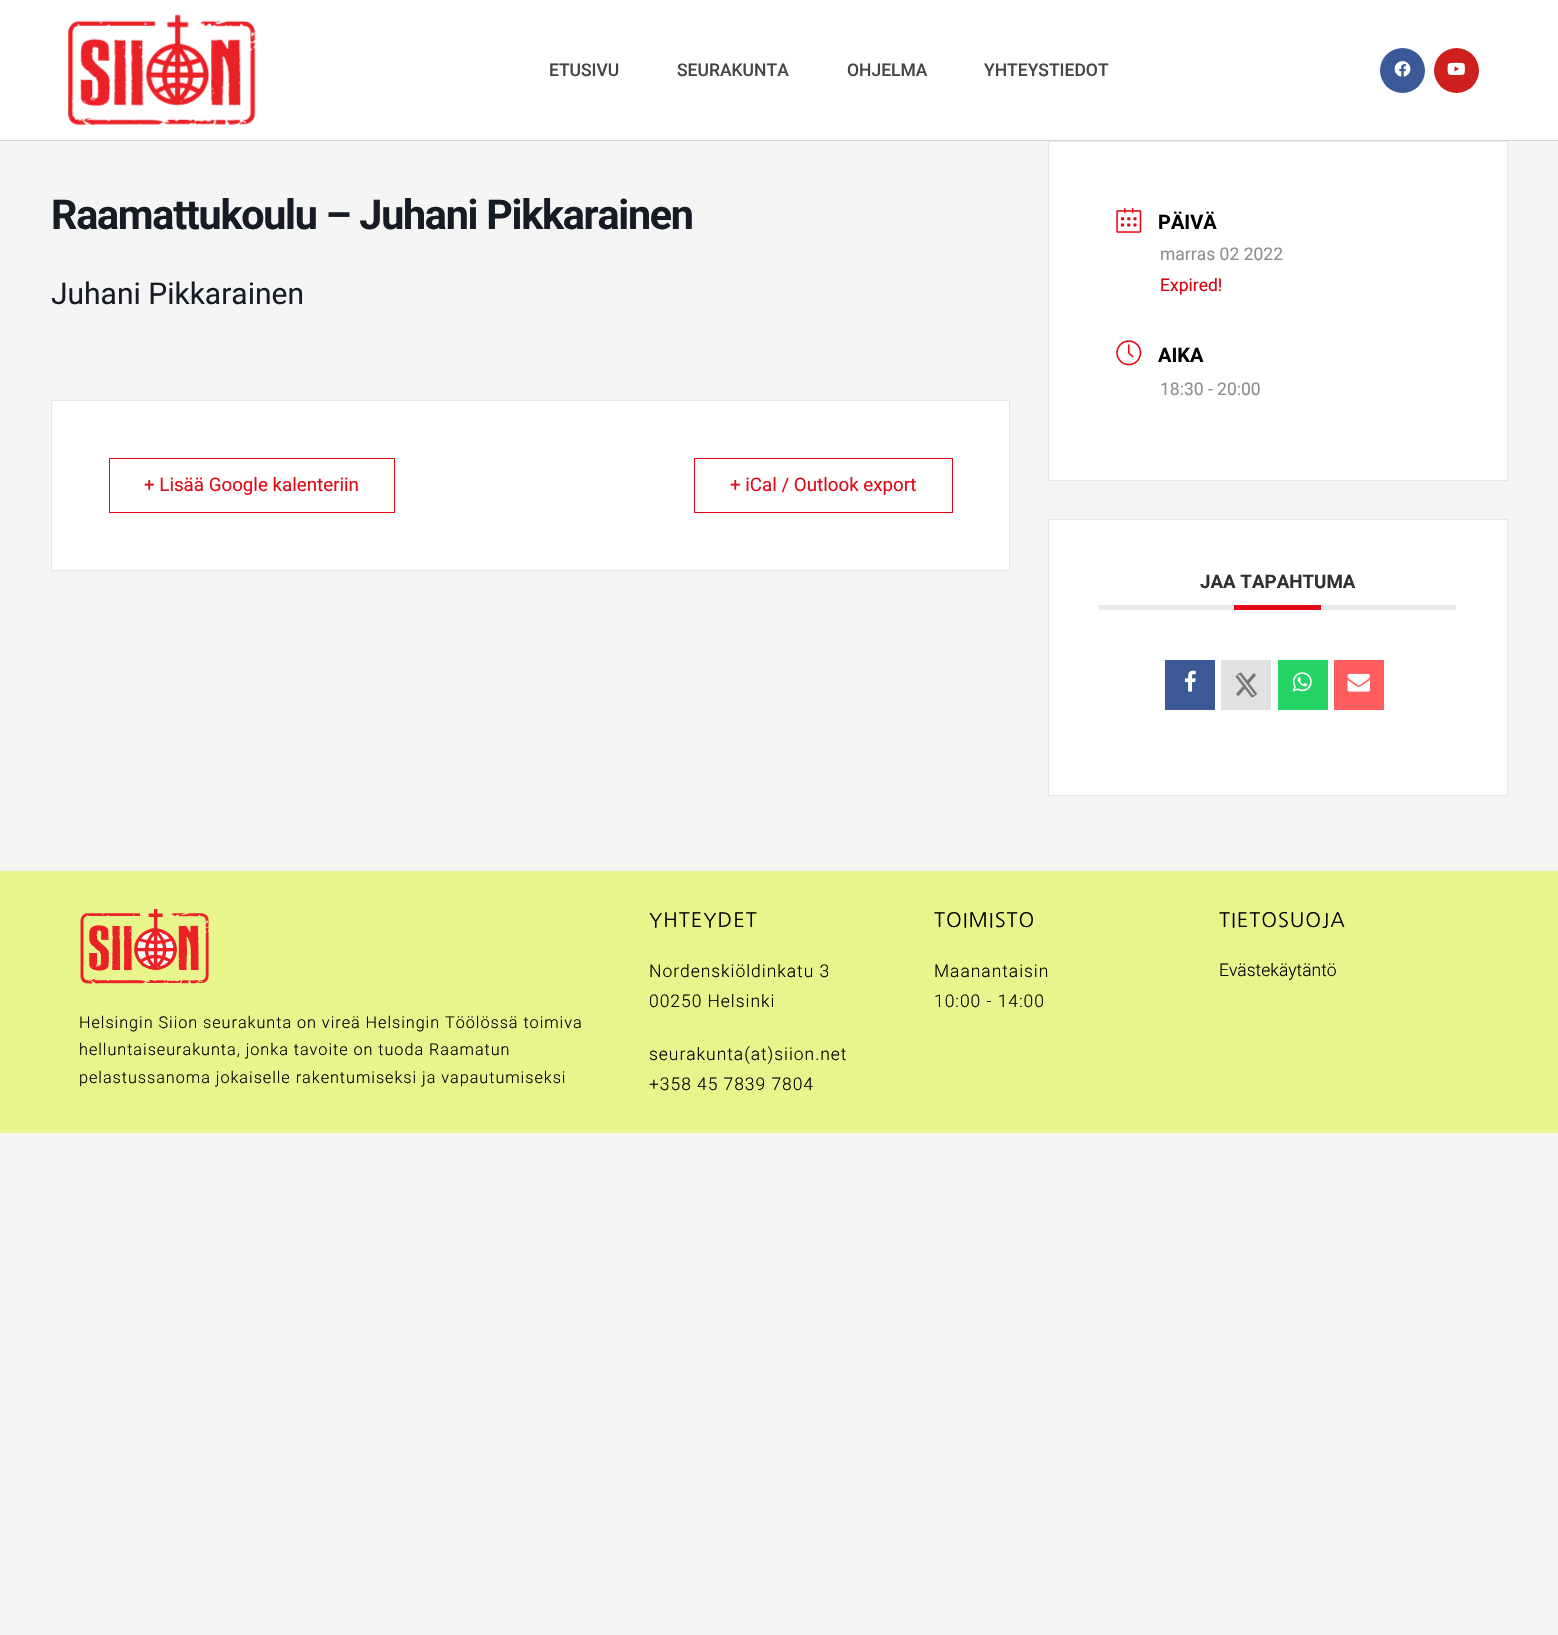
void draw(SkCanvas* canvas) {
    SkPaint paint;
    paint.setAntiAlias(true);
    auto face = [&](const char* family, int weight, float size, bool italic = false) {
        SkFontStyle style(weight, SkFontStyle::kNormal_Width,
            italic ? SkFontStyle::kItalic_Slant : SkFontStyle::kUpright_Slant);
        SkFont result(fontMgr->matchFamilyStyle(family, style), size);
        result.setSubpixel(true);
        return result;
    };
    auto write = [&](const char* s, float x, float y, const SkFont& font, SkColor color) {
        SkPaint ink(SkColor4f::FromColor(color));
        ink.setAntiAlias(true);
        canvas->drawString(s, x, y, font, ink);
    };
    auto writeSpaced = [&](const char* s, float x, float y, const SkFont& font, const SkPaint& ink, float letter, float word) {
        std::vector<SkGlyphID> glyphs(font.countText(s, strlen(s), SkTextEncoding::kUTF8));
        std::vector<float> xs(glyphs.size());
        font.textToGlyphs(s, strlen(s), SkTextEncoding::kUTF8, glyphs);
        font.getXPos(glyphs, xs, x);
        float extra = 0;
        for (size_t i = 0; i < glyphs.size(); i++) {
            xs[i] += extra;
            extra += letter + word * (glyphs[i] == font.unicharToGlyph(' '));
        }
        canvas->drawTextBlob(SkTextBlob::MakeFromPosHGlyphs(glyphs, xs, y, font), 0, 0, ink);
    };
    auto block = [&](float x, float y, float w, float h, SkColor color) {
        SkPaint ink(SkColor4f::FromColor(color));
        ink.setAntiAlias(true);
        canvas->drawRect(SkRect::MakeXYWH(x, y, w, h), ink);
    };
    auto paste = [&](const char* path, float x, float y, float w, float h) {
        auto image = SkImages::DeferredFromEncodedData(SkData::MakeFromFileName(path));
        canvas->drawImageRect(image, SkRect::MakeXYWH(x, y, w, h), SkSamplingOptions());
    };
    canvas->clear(SkColorSetRGB(245, 245, 245));
    block(0, 0, 1558, 140, SK_ColorWHITE);
    block(0, 140, 1558, 1, SkColorSetRGB(211, 211, 211));
    paste("pic1.png", 67, 14, 189, 111);
    auto kFont1 = face("Roboto", 500, 17.5f);
    write("ETUSIVU", 549, 76, kFont1, SkColorSetRGB(69, 69, 69));
    write("SEURAKUNTA", 677, 76, kFont1, SkColorSetRGB(69, 69, 69));
    write("OHJELMA", 847, 76, kFont1, SkColorSetRGB(69, 69, 69));
    write("YHTEYSTIEDOT", 984, 76, kFont1, SkColorSetRGB(69, 69, 69));
    paint.setColor(SkColorSetRGB(59, 89, 152));
    canvas->drawCircle(1402.5f, 70.5f, 22.5f, paint);
    paste("pic2.png", 1394, 61, 17, 16);
    paint.setColor(SkColorSetRGB(205, 32, 31));
    canvas->drawCircle(1456.5f, 70.5f, 22.5f, paint);
    paste("pic3.png", 1447, 62, 18, 13);
    auto kFont2 = face("Roboto", 700, 41.25f);
    paint.setColor(SkColorSetRGB(23, 28, 36));
    writeSpaced("Raamattukoulu – Juhani Pikkarainen", 51, 229, kFont2, paint, -1.25f, 0);
    auto kFont3 = face("Roboto", 400, 30);
    write("Juhani Pikkarainen", 51, 304, kFont3, SkColorSetRGB(23, 28, 36));
    paint.setColor(SK_ColorWHITE);
    canvas->drawRect(SkRect::MakeXYWH(51.5f, 400.5f, 958, 170), paint);
    paint.setStyle(SkPaint::kStroke_Style);
    paint.setStrokeWidth(1);
    paint.setColor(SkColorSetRGB(230, 231, 232));
    canvas->drawRect(SkRect::MakeXYWH(51.5f, 400.5f, 958, 170), paint);
    paint.setColor(SkColorSetRGB(226, 10, 23));
    canvas->drawRect(SkRect::MakeXYWH(109.5f, 458.5f, 285, 54), paint);
    auto kFont4 = face("Roboto", 400, 18.75f);
    write("+ Lisää Google kalenteriin", 144, 491, kFont4, SkColorSetRGB(226, 10, 23));
    canvas->drawRect(SkRect::MakeXYWH(694.5f, 458.5f, 258, 54), paint);
    write("+ iCal / Outlook export", 730, 491, kFont4, SkColorSetRGB(226, 10, 23));
    paint.setStyle(SkPaint::kFill_Style);
    paint.setColor(SK_ColorWHITE);
    canvas->drawRect(SkRect::MakeXYWH(1048.5f, 141.5f, 459, 339), paint);
    paint.setStyle(SkPaint::kStroke_Style);
    paint.setColor(SkColorSetRGB(230, 231, 232));
    canvas->drawRect(SkRect::MakeXYWH(1048.5f, 141.5f, 459, 339), paint);
    paste("pic4.png", 1116, 207, 26, 26);
    auto kFont5 = face("Roboto", 700, 20);
    write("PÄIVÄ", 1158, 229, kFont5, SK_ColorBLACK);
    auto kFont6 = face("Roboto", 400, 17.5f);
    write("marras 02 2022", 1160, 260, kFont6, SkColorSetRGB(141, 141, 141));
    write("Expired!", 1160, 291, kFont6, SkColorSetRGB(216, 0, 12));
    paste("pic5.png", 1116, 340, 26, 26);
    write("AIKA", 1158, 362, kFont5, SK_ColorBLACK);
    write("18:30 - 20:00", 1160, 395, kFont6, SkColorSetRGB(141, 141, 141));
    paint.setStyle(SkPaint::kFill_Style);
    paint.setColor(SK_ColorWHITE);
    canvas->drawRect(SkRect::MakeXYWH(1048.5f, 519.5f, 459, 276), paint);
    paint.setStyle(SkPaint::kStroke_Style);
    paint.setColor(SkColorSetRGB(230, 231, 232));
    canvas->drawRect(SkRect::MakeXYWH(1048.5f, 519.5f, 459, 276), paint);
    block(1099, 605, 357, 5, SkColorSetRGB(235, 235, 235));
    auto kFont7 = face("Roboto", 700, 18.75f);
    write("JAA TAPAHTUMA", 1200, 588, kFont7, SkColorSetRGB(49, 49, 49));
    block(1234, 605, 87, 5, SkColorSetRGB(226, 10, 23));
    block(1165, 660, 50, 50, SkColorSetRGB(59, 89, 150));
    paste("pic6.png", 1184, 670, 12, 22);
    block(1221, 660, 50, 50, SkColorSetRGB(225, 225, 225));
    paste("pic7.png", 1235, 672, 23, 26);
    block(1278, 660, 50, 50, SkColorSetRGB(37, 211, 102));
    paste("pic8.png", 1292, 672, 20, 20);
    block(1334, 660, 50, 50, SkColorSetRGB(255, 93, 94));
    paste("pic9.png", 1347, 673, 23, 19);
    block(0, 871, 1558, 262, SkColorSetRGB(232, 244, 140));
    paste("pic10.png", 80, 909, 129, 75);
    auto kFont8 = face("Roboto", 300, 16.25f);
    paint.setStyle(SkPaint::kFill_Style);
    paint.setColor(SK_ColorBLACK);
    writeSpaced("Helsingin Siion seurakunta on vireä Helsingin Töölössä toimiva", 79, 1028, kFont8, paint, 0.95f, 0);
    writeSpaced("helluntaiseurakunta, jonka tavoite on tuoda Raamatun", 79, 1055, kFont8, paint, 0.95f, 0);
    writeSpaced("pelastussanoma jokaiselle rakentumiseksi ja vapautumiseksi", 79, 1083, kFont8, paint, 0.95f, 0);
    auto kFont9 = face("NanumGothic", 400, 20);
    writeSpaced("YHTEYDET", 649, 927, kFont9, paint, 1, 0);
    auto kFont10 = face("Roboto", 300, 17.5f);
    writeSpaced("Nordenskiöldinkatu 3", 649, 977, kFont10, paint, 0.95f, 0);
    writeSpaced("00250 Helsinki", 649, 1007, kFont10, paint, 0.95f, 0);
    writeSpaced("seurakunta(at)siion.net", 649, 1060, kFont10, paint, 0.95f, 0);
    writeSpaced("+358 45 7839 7804", 649, 1090, kFont10, paint, 0.95f, 0);
    writeSpaced("TOIMISTO", 934, 927, kFont9, paint, 1, 0);
    writeSpaced("Maanantaisin", 934, 977, kFont10, paint, 0.95f, 0);
    writeSpaced("10:00 - 14:00", 934, 1007, kFont10, paint, 0.95f, 0);
    writeSpaced("TIETOSUOJA", 1219, 927, kFont9, paint, 1, 0);
    write("Evästekäytäntö", 1219, 976, kFont10, SK_ColorBLACK);
}
